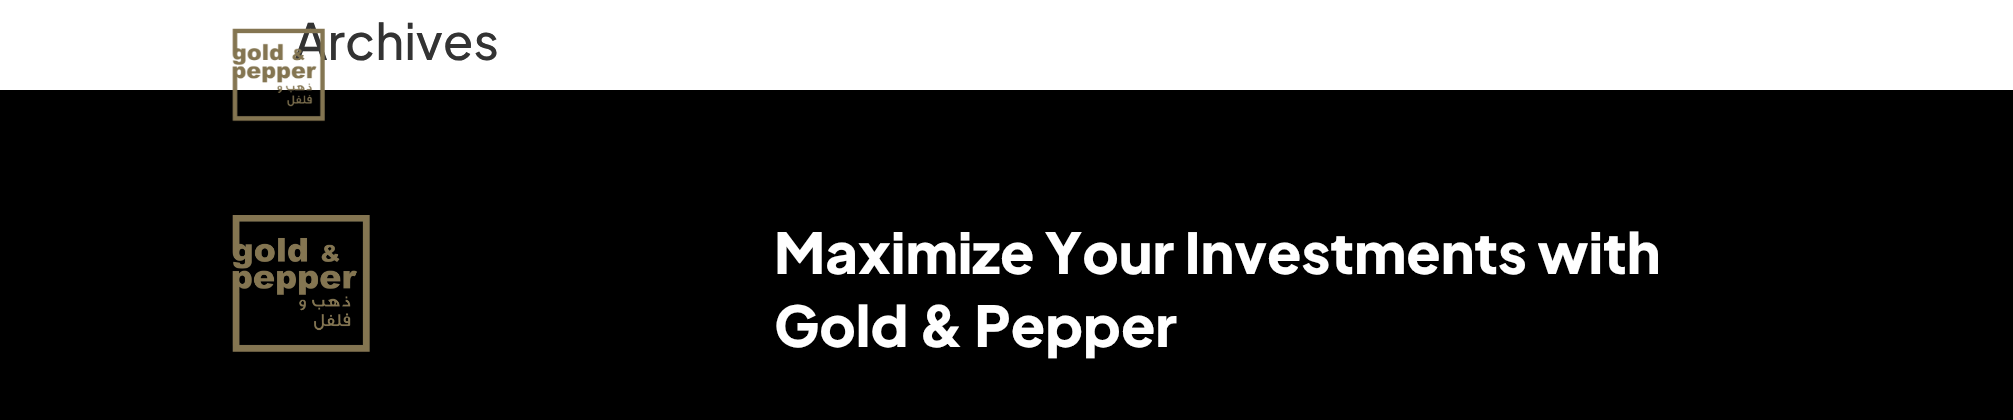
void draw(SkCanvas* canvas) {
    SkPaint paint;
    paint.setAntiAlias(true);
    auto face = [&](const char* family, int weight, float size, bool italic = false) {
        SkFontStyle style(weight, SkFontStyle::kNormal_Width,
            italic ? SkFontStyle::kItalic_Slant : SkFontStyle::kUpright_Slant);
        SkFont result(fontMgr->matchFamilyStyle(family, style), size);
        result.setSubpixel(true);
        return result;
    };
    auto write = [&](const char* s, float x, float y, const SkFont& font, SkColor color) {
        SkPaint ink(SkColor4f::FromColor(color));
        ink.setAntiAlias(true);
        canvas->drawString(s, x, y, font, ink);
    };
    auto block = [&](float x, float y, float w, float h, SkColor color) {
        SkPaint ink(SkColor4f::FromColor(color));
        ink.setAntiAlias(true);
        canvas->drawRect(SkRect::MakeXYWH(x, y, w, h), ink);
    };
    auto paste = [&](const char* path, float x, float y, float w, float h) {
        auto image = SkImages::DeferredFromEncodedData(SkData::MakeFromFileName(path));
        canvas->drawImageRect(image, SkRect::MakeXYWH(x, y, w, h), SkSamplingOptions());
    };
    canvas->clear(SK_ColorWHITE);
    auto kFont1 = face("Plus Jakarta Sans", 500, 50);
    write("Archives", 294, 60, kFont1, SkColorSetRGB(51, 51, 51));
    block(0, 90, 2013, 330, SK_ColorBLACK);
    paste("pic1.png", 232, 28, 93, 94);
    paste("pic2.png", 232, 215, 138, 137);
    auto kFont2 = face("Plus Jakarta Sans", 800, 56.25f);
    write("Maximize Your Investments with", 774, 274, kFont2, SK_ColorWHITE);
    write("Gold & Pepper", 774, 347, kFont2, SK_ColorWHITE);
}
